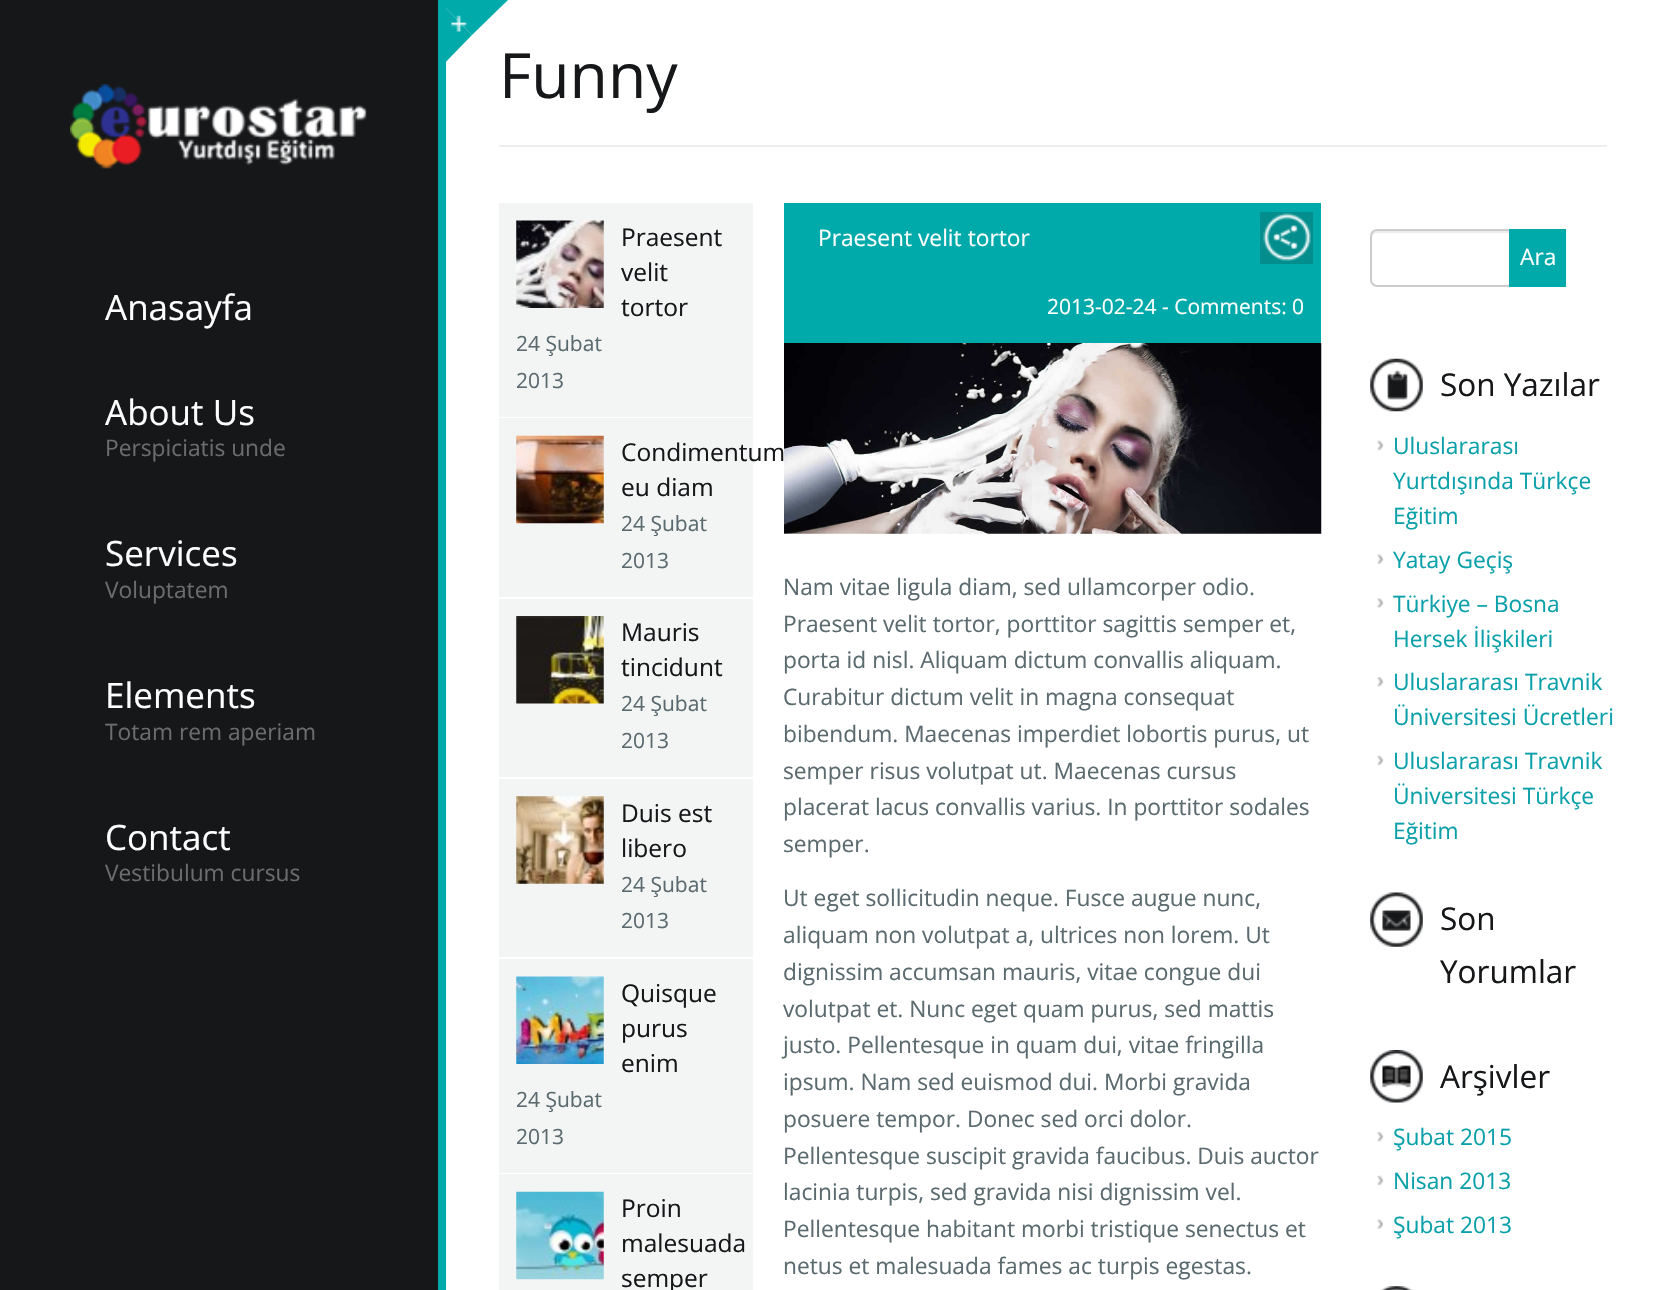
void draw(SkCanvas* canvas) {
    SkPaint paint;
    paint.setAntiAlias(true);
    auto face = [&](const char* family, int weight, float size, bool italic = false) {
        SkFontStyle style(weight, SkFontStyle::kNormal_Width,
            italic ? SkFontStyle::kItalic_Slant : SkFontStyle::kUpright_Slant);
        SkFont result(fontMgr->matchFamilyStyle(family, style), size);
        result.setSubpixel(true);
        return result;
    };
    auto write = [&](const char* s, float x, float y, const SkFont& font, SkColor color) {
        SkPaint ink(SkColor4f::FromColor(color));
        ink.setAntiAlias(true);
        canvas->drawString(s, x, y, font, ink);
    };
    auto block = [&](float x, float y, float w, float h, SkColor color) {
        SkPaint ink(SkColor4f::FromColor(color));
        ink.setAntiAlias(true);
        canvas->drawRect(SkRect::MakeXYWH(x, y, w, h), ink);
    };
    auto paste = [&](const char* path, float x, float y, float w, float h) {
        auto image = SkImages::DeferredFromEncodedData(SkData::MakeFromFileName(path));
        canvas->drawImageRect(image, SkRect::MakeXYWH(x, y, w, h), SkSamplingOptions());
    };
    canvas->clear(SkColorSetRGB(22, 23, 25));
    paste("pic1.png", 70, 84, 297, 85);
    auto kFont1 = face("Open Sans", 400, 35);
    write("Anasayfa", 105, 320, kFont1, SK_ColorWHITE);
    write("About Us", 105, 425, kFont1, SK_ColorWHITE);
    auto kFont2 = face("Open Sans", 400, 22.75f);
    write("Perspiciatis unde", 105, 456, kFont2, SkColorSetRGB(108, 108, 108));
    write("Services", 105, 566, kFont1, SK_ColorWHITE);
    write("Voluptatem", 105, 598, kFont2, SkColorSetRGB(108, 108, 108));
    write("Elements", 105, 708, kFont1, SK_ColorWHITE);
    write("Totam rem aperiam", 105, 740, kFont2, SkColorSetRGB(108, 108, 108));
    write("Contact", 105, 850, kFont1, SK_ColorWHITE);
    write("Vestibulum cursus", 105, 881, kFont2, SkColorSetRGB(108, 108, 108));
    block(438, 0, 8, 1290, SkColorSetRGB(0, 170, 170));
    block(446, 0, 1213, 1290, SK_ColorWHITE);
    paint.setColor(SkColorSetRGB(0, 170, 170));
    canvas->drawPath(SkPathBuilder().moveTo(438, 0).lineTo(508, 0).lineTo(472, 35).close().detach(), paint);
    canvas->drawPath(SkPathBuilder().moveTo(438, 70).lineTo(438, 0).lineTo(472, 35).close().detach(), paint);
    paste("pic2.png", 451, 15, 17, 17);
    block(499, 145, 1108, 2, SkColorSetRGB(238, 238, 238));
    auto kFont3 = face("Open Sans", 400, 62.5f);
    write("Funny", 499, 98, kFont3, SkColorSetRGB(21, 23, 25));
    block(499, 203, 254, 214, SkColorSetRGB(243, 245, 245));
    paste("pic3.png", 516, 220, 88, 88);
    auto kFont4 = face("Open Sans", 400, 24.5f);
    write("Praesent", 621, 246, kFont4, SkColorSetRGB(21, 23, 25));
    write("velit", 621, 281, kFont4, SkColorSetRGB(21, 23, 25));
    write("tortor", 621, 316, kFont4, SkColorSetRGB(21, 23, 25));
    auto kFont5 = face("Open Sans", 400, 21);
    write("24 Şubat", 516, 351, kFont5, SkColorSetRGB(91, 106, 111));
    write("2013", 516, 388, kFont5, SkColorSetRGB(91, 106, 111));
    block(499, 418, 254, 179, SkColorSetRGB(243, 245, 245));
    paste("pic4.png", 516, 435, 88, 89);
    write("Condimentum", 621, 461, kFont4, SkColorSetRGB(21, 23, 25));
    write("eu diam", 621, 496, kFont4, SkColorSetRGB(21, 23, 25));
    write("24 Şubat", 621, 531, kFont5, SkColorSetRGB(91, 106, 111));
    write("2013", 621, 568, kFont5, SkColorSetRGB(91, 106, 111));
    block(499, 599, 254, 178, SkColorSetRGB(243, 245, 245));
    paste("pic5.png", 516, 616, 88, 88);
    write("Mauris", 621, 641, kFont4, SkColorSetRGB(21, 23, 25));
    write("tincidunt", 621, 676, kFont4, SkColorSetRGB(21, 23, 25));
    write("24 Şubat", 621, 711, kFont5, SkColorSetRGB(91, 106, 111));
    write("2013", 621, 748, kFont5, SkColorSetRGB(91, 106, 111));
    block(499, 779, 254, 178, SkColorSetRGB(243, 245, 245));
    paste("pic6.png", 516, 796, 88, 88);
    write("Duis est", 621, 822, kFont4, SkColorSetRGB(21, 23, 25));
    write("libero", 621, 857, kFont4, SkColorSetRGB(21, 23, 25));
    write("24 Şubat", 621, 892, kFont5, SkColorSetRGB(91, 106, 111));
    write("2013", 621, 928, kFont5, SkColorSetRGB(91, 106, 111));
    block(499, 959, 254, 214, SkColorSetRGB(243, 245, 245));
    paste("pic7.png", 516, 976, 88, 88);
    write("Quisque", 621, 1002, kFont4, SkColorSetRGB(21, 23, 25));
    write("purus", 621, 1037, kFont4, SkColorSetRGB(21, 23, 25));
    write("enim", 621, 1072, kFont4, SkColorSetRGB(21, 23, 25));
    write("24 Şubat", 516, 1107, kFont5, SkColorSetRGB(91, 106, 111));
    write("2013", 516, 1144, kFont5, SkColorSetRGB(91, 106, 111));
    block(499, 1174, 254, 116, SkColorSetRGB(243, 245, 245));
    paste("pic8.png", 516, 1191, 88, 89);
    write("Proin", 621, 1217, kFont4, SkColorSetRGB(21, 23, 25));
    write("malesuada", 621, 1252, kFont4, SkColorSetRGB(21, 23, 25));
    write("semper", 621, 1287, kFont4, SkColorSetRGB(21, 23, 25));
    block(784, 203, 537, 140, SkColorSetRGB(0, 170, 170));
    write("Praesent velit tortor", 818, 246, kFont2, SK_ColorWHITE);
    block(1260, 212, 53, 52, SkColorSetRGB(4, 141, 141));
    paste("pic9.png", 1263, 213, 48, 48);
    write("2013-02-24 - Comments: 0", 1047, 314, kFont5, SK_ColorWHITE);
    paste("pic10.png", 784, 343, 538, 191);
    write("Nam vitae ligula diam, sed ullamcorper odio.", 783, 595, kFont2, SkColorSetRGB(91, 106, 111));
    write("Praesent velit tortor, porttitor sagittis semper et,", 783, 632, kFont2, SkColorSetRGB(91, 106, 111));
    write("porta id nisl. Aliquam dictum convallis aliquam.", 783, 668, kFont2, SkColorSetRGB(91, 106, 111));
    write("Curabitur dictum velit in magna consequat", 783, 705, kFont2, SkColorSetRGB(91, 106, 111));
    write("bibendum. Maecenas imperdiet lobortis purus, ut", 783, 742, kFont2, SkColorSetRGB(91, 106, 111));
    write("semper risus volutpat ut. Maecenas cursus", 783, 779, kFont2, SkColorSetRGB(91, 106, 111));
    write("placerat lacus convallis varius. In porttitor sodales", 783, 815, kFont2, SkColorSetRGB(91, 106, 111));
    write("semper.", 783, 852, kFont2, SkColorSetRGB(91, 106, 111));
    write("Ut eget sollicitudin neque. Fusce augue nunc,", 783, 906, kFont2, SkColorSetRGB(91, 106, 111));
    write("aliquam non volutpat a, ultrices non lorem. Ut", 783, 943, kFont2, SkColorSetRGB(91, 106, 111));
    write("dignissim accumsan mauris, vitae congue dui", 783, 980, kFont2, SkColorSetRGB(91, 106, 111));
    write("volutpat et. Nunc eget quam purus, sed mattis", 783, 1017, kFont2, SkColorSetRGB(91, 106, 111));
    write("justo. Pellentesque in quam dui, vitae fringilla", 783, 1053, kFont2, SkColorSetRGB(91, 106, 111));
    write("ipsum. Nam sed euismod dui. Morbi gravida", 783, 1090, kFont2, SkColorSetRGB(91, 106, 111));
    write("posuere tempor. Donec sed orci dolor.", 783, 1127, kFont2, SkColorSetRGB(91, 106, 111));
    write("Pellentesque suscipit gravida faucibus. Duis auctor", 783, 1164, kFont2, SkColorSetRGB(91, 106, 111));
    write("lacinia turpis, sed gravida nisi dignissim vel.", 783, 1200, kFont2, SkColorSetRGB(91, 106, 111));
    write("Pellentesque habitant morbi tristique senectus et", 783, 1237, kFont2, SkColorSetRGB(91, 106, 111));
    write("netus et malesuada fames ac turpis egestas.", 783, 1274, kFont2, SkColorSetRGB(91, 106, 111));
    paint.setColor(SkColorSetRGB(236, 236, 236));
    canvas->drawPath(SkPathBuilder().moveTo(1377, 233).lineTo(1507, 233).cubicTo(1510, 233, 1512, 235, 1512, 238).lineTo(1512, 236).cubicTo(1512, 233, 1510, 231, 1507, 231).lineTo(1377, 231).cubicTo(1374, 231, 1372, 233, 1372, 236).lineTo(1372, 238).cubicTo(1372, 235, 1374, 233, 1377, 233).close().detach(), paint);
    paint.setStyle(SkPaint::kStroke_Style);
    paint.setStrokeWidth(2);
    paint.setColor(SkColorSetRGB(204, 204, 204));
    canvas->drawRoundRect(SkRect::MakeXYWH(1371, 230, 142, 56), 6, 6, paint);
    block(1509, 229, 57, 58, SkColorSetRGB(0, 170, 170));
    write("Ara", 1520, 265, kFont2, SK_ColorWHITE);
    paste("pic11.png", 1370, 358, 53, 54);
    auto kFont6 = face("Open Sans", 400, 31.5f);
    write("Son Yazılar", 1440, 396, kFont6, SkColorSetRGB(21, 23, 25));
    paste("pic12.png", 1377, 440, 8, 11);
    write("Uluslararası", 1393, 454, kFont2, SkColorSetRGB(10, 160, 170));
    write("Yurtdışında Türkçe", 1393, 489, kFont2, SkColorSetRGB(10, 160, 170));
    write("Eğitim", 1393, 524, kFont2, SkColorSetRGB(10, 160, 170));
    paste("pic13.png", 1377, 554, 7, 10);
    write("Yatay Geçiş", 1393, 568, kFont2, SkColorSetRGB(10, 160, 170));
    paste("pic14.png", 1377, 598, 7, 10);
    write("Türkiye – Bosna", 1393, 612, kFont2, SkColorSetRGB(10, 160, 170));
    write("Hersek İlişkileri", 1393, 647, kFont2, SkColorSetRGB(10, 160, 170));
    paste("pic15.png", 1377, 677, 8, 10);
    write("Uluslararası Travnik", 1393, 690, kFont2, SkColorSetRGB(10, 160, 170));
    write("Üniversitesi Ücretleri", 1393, 725, kFont2, SkColorSetRGB(10, 160, 170));
    paste("pic12.png", 1377, 755, 8, 11);
    write("Uluslararası Travnik", 1393, 769, kFont2, SkColorSetRGB(10, 160, 170));
    write("Üniversitesi Türkçe", 1393, 804, kFont2, SkColorSetRGB(10, 160, 170));
    write("Eğitim", 1393, 839, kFont2, SkColorSetRGB(10, 160, 170));
    paste("pic16.png", 1370, 892, 53, 55);
    write("Son", 1440, 930, kFont6, SkColorSetRGB(21, 23, 25));
    write("Yorumlar", 1440, 983, kFont6, SkColorSetRGB(21, 23, 25));
    paste("pic17.png", 1370, 1050, 53, 53);
    write("Arşivler", 1440, 1088, kFont6, SkColorSetRGB(21, 23, 25));
    paste("pic15.png", 1377, 1132, 8, 10);
    write("Şubat 2015", 1393, 1145, kFont2, SkColorSetRGB(10, 160, 170));
    paste("pic12.png", 1377, 1175, 8, 11);
    write("Nisan 2013", 1393, 1189, kFont2, SkColorSetRGB(10, 160, 170));
    paste("pic13.png", 1377, 1219, 7, 10);
    write("Şubat 2013", 1393, 1233, kFont2, SkColorSetRGB(10, 160, 170));
    paste("pic18.png", 1380, 1286, 33, 4);
}
